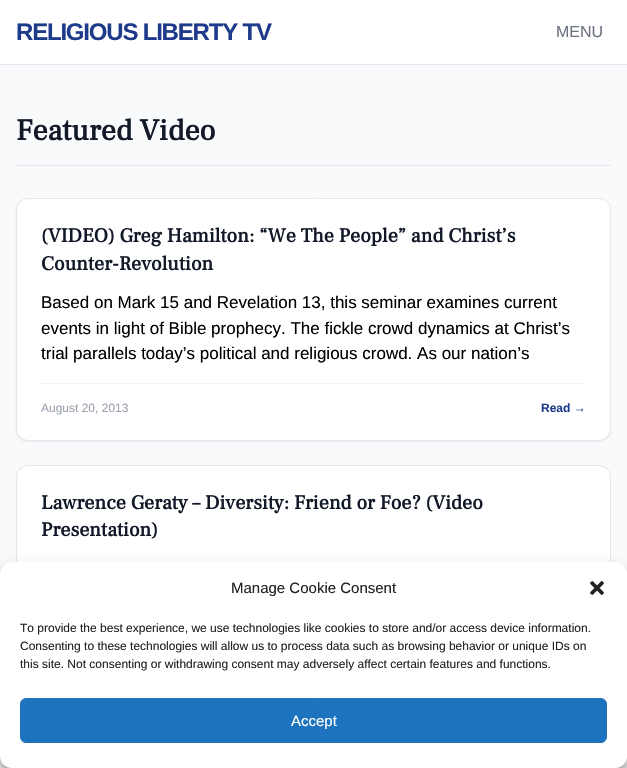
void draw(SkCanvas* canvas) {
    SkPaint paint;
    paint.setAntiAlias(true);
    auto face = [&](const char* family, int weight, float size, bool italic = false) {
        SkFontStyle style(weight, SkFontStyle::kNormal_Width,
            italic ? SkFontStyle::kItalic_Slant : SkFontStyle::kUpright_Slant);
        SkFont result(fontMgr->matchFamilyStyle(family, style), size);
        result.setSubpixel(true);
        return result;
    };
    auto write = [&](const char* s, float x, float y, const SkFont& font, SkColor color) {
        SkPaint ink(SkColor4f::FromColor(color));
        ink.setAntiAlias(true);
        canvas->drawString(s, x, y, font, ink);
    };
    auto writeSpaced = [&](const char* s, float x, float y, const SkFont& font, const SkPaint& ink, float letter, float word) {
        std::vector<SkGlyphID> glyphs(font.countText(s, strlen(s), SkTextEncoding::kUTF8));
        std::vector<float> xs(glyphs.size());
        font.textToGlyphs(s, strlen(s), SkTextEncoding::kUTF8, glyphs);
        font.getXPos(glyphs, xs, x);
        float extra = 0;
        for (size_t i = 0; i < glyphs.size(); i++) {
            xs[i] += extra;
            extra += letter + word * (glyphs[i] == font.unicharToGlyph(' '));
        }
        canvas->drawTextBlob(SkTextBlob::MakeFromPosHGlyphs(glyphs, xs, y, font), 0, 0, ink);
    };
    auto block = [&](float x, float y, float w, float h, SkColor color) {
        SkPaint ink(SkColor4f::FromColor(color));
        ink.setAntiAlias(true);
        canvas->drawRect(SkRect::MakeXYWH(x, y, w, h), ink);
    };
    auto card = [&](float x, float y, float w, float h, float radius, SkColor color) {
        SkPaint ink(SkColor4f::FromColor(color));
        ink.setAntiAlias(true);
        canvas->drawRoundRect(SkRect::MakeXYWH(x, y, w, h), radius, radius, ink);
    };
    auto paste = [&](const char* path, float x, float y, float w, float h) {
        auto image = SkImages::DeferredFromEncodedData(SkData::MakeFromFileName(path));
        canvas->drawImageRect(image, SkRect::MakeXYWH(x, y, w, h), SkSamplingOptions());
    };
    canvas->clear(SkColorSetRGB(249, 250, 251));
    block(0, 0, 627, 64, SK_ColorWHITE);
    block(0, 64, 627, 1, SkColorSetRGB(229, 231, 235));
    auto kFont1 = face("Liberation Sans", 700, 24);
    paint.setColor(SkColorSetRGB(30, 58, 138));
    writeSpaced("RELIGIOUS LIBERTY TV", 16, 40, kFont1, paint, -1.2f, 0);
    auto kFont2 = face("Liberation Sans", 400, 16);
    write("MENU", 556, 37, kFont2, SkColorSetRGB(107, 114, 128));
    block(16, 165, 595, 1, SkColorSetRGB(229, 231, 235));
    auto kFont3 = face("Frank Ruhl Libre", 700, 30);
    write("Featured Video", 16, 140, kFont3, SkColorSetRGB(17, 24, 39));
    paint.setColor(SkColorSetARGB(13, 0, 0, 0));
    paint.setMaskFilter(SkMaskFilter::MakeBlur(kNormal_SkBlurStyle, 1));
    canvas->drawRoundRect(SkRect::MakeXYWH(16, 199, 595, 243), 12, 12, paint);
    paint.setMaskFilter(nullptr);
    paint.setColor(SK_ColorWHITE);
    canvas->drawRoundRect(SkRect::MakeXYWH(16.5f, 198.5f, 594, 242), 11.5f, 11.5f, paint);
    paint.setStyle(SkPaint::kStroke_Style);
    paint.setStrokeWidth(1);
    paint.setColor(SkColorSetRGB(229, 231, 235));
    canvas->drawRoundRect(SkRect::MakeXYWH(16.5f, 198.5f, 594, 242), 11.5f, 11.5f, paint);
    auto kFont4 = face("Frank Ruhl Libre", 700, 20);
    write("(VIDEO) Greg Hamilton: “We The People” and Christ’s", 41, 242, kFont4, SkColorSetRGB(17, 24, 39));
    write("Counter-Revolution", 41, 270, kFont4, SkColorSetRGB(17, 24, 39));
    auto kFont5 = face("Liberation Sans", 400, 17);
    write("Based on Mark 15 and Revelation 13, this seminar examines current", 41, 308, kFont5, SK_ColorBLACK);
    write("events in light of Bible prophecy. The fickle crowd dynamics at Christ’s", 41, 334, kFont5, SK_ColorBLACK);
    write("trial parallels today’s political and religious crowd. As our nation’s", 41, 359, kFont5, SK_ColorBLACK);
    block(41, 383, 545, 1, SkColorSetRGB(243, 244, 246));
    auto kFont6 = face("Liberation Sans", 400, 12);
    write("August 20, 2013", 41, 412, kFont6, SkColorSetRGB(156, 163, 175));
    auto kFont7 = face("Liberation Sans", 700, 12);
    write("Read →", 541, 412, kFont7, SkColorSetRGB(30, 58, 138));
    paint.setStyle(SkPaint::kFill_Style);
    paint.setColor(SK_ColorWHITE);
    canvas->drawRoundRect(SkRect::MakeXYWH(16.5f, 465.5f, 594, 241), 11.5f, 11.5f, paint);
    paint.setStyle(SkPaint::kStroke_Style);
    paint.setColor(SkColorSetRGB(229, 231, 235));
    canvas->drawRoundRect(SkRect::MakeXYWH(16.5f, 465.5f, 594, 241), 11.5f, 11.5f, paint);
    write("Lawrence Geraty – Diversity: Friend or Foe? (Video", 41, 509, kFont4, SkColorSetRGB(17, 24, 39));
    write("Presentation)", 41, 536, kFont4, SkColorSetRGB(17, 24, 39));
    paint.setStyle(SkPaint::kFill_Style);
    paint.setColor(SkColorSetARGB(59, 0, 0, 0));
    paint.setMaskFilter(SkMaskFilter::MakeBlur(kNormal_SkBlurStyle, 3));
    canvas->drawRoundRect(SkRect::MakeXYWH(0, 568, 627, 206), 12, 12, paint);
    paint.setMaskFilter(nullptr);
    paint.setColor(SkColorSetARGB(48, 0, 0, 0));
    paint.setMaskFilter(SkMaskFilter::MakeBlur(kNormal_SkBlurStyle, 10));
    canvas->drawRoundRect(SkRect::MakeXYWH(0, 572, 627, 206), 12, 12, paint);
    paint.setMaskFilter(nullptr);
    card(0, 562, 627, 206, 12, SK_ColorWHITE);
    auto kFont8 = face("Liberation Sans", 400, 15);
    write("Manage Cookie Consent", 231, 593, kFont8, SkColorSetRGB(34, 34, 34));
    paste("pic1.png", 590, 581, 14, 14);
    write("To provide the best experience, we use technologies like cookies to store and/or access device information.", 20, 632, kFont6, SkColorSetRGB(34, 34, 34));
    write("Consenting to these technologies will allow us to process data such as browsing behavior or unique IDs on", 20, 650, kFont6, SkColorSetRGB(34, 34, 34));
    write("this site. Not consenting or withdrawing consent may adversely affect certain features and functions.", 20, 668, kFont6, SkColorSetRGB(34, 34, 34));
    paint.setColor(SkColorSetRGB(30, 115, 190));
    canvas->drawRoundRect(SkRect::MakeXYWH(20.5f, 698.5f, 586, 44), 5.5f, 5.5f, paint);
    paint.setStyle(SkPaint::kStroke_Style);
    canvas->drawRoundRect(SkRect::MakeXYWH(20.5f, 698.5f, 586, 44), 5.5f, 5.5f, paint);
    write("Accept", 291, 726, kFont8, SK_ColorWHITE);
}
